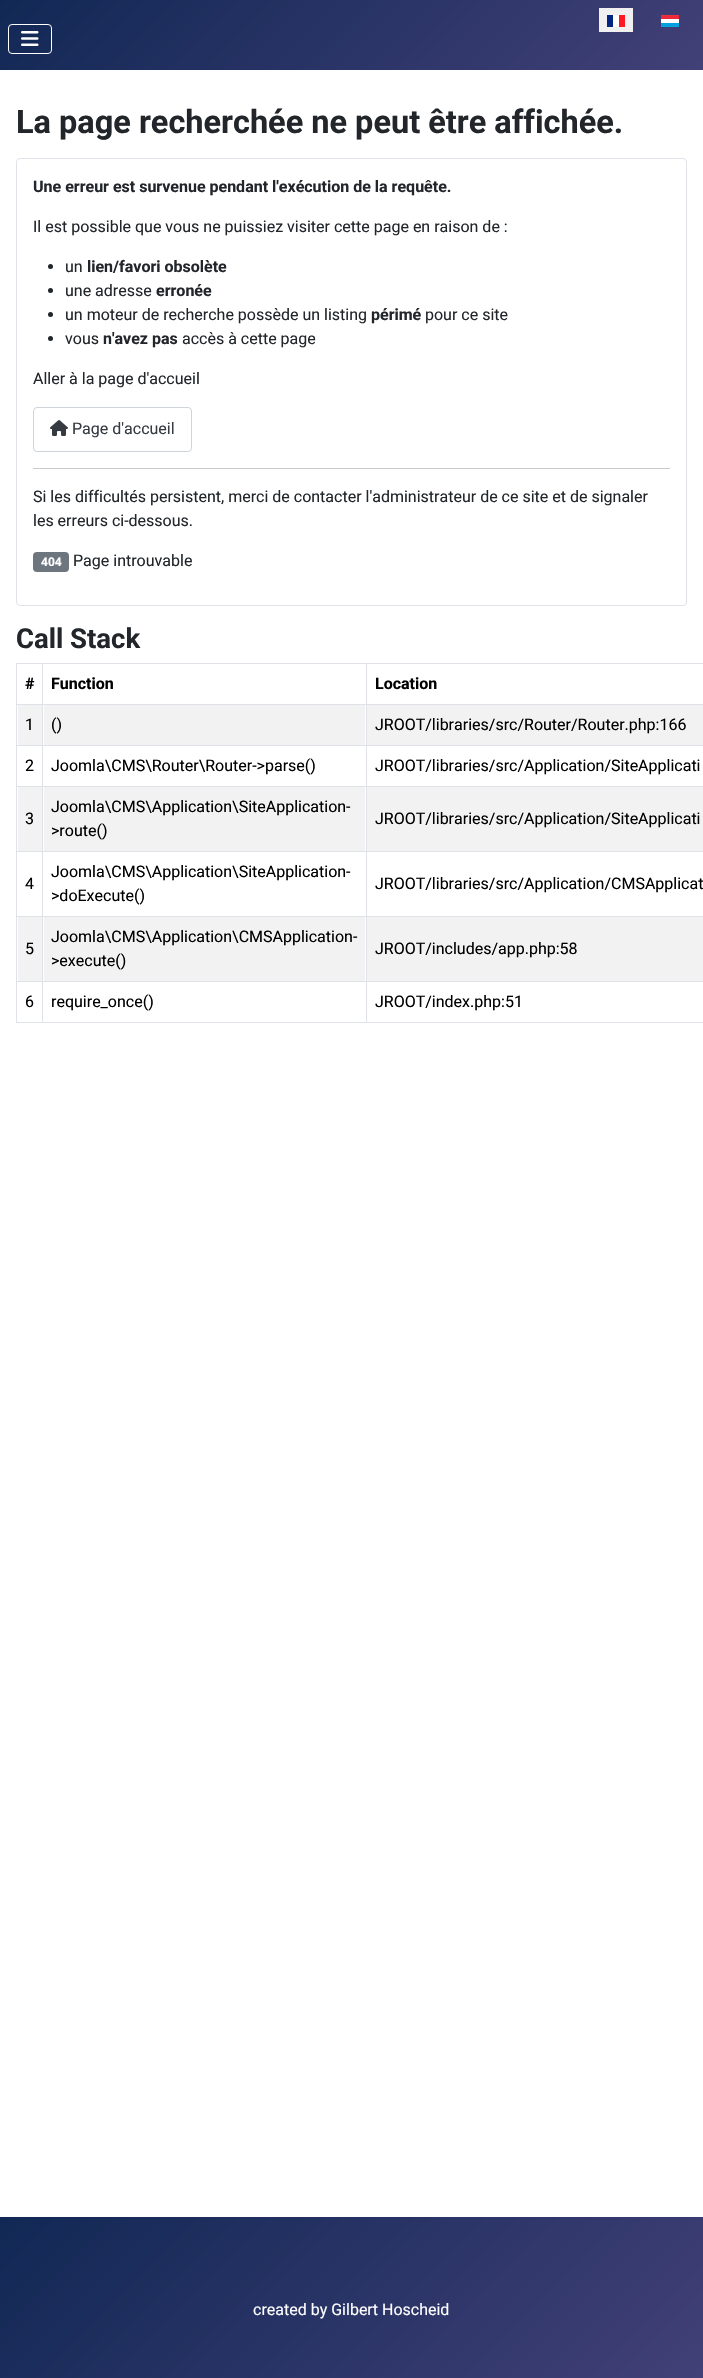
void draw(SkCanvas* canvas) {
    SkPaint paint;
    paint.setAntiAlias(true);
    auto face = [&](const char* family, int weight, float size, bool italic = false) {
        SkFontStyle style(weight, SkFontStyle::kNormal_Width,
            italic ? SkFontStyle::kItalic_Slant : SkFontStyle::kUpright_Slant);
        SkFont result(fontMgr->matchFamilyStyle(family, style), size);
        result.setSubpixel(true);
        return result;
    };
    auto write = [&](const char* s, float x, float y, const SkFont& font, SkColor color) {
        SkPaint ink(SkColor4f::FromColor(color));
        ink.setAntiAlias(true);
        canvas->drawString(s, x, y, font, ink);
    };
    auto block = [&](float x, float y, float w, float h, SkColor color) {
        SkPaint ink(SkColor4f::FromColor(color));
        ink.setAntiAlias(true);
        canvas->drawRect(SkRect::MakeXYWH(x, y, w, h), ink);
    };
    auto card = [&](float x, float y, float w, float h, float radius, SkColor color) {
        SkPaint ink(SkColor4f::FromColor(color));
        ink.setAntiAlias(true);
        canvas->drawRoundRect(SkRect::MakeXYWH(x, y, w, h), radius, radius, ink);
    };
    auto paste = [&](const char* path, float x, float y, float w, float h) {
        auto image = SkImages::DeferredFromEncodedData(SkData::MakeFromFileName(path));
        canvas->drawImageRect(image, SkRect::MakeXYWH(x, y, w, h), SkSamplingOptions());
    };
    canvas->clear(SK_ColorWHITE);
    {
        const SkColor colors[] = {SkColorSetRGB(17, 40, 85), SkColorSetRGB(66, 64, 119)};
        const float stops[] = {0, 1};
        const SkPoint ends[] = {{158, -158}, {545, 228}};
        paint.setShader(SkGradientShader::MakeLinear(ends, colors, stops, 2, SkTileMode::kClamp));
        paint.setAlpha(255);
    }
    canvas->drawRect(SkRect::MakeXYWH(0, 0, 703, 70), paint);
    block(599, 8, 34, 24, SkColorSetRGB(240, 240, 240));
    paste("pic1.png", 607, 15, 18, 12);
    paste("pic2.png", 661, 15, 18, 12);
    paint.setStyle(SkPaint::kStroke_Style);
    paint.setStrokeWidth(1);
    paint.setShader(nullptr);
    paint.setColor(SK_ColorWHITE);
    canvas->drawRoundRect(SkRect::MakeXYWH(8.5f, 24.5f, 43, 29), 3.5f, 3.5f, paint);
    paste("pic3.png", 21, 31, 18, 15);
    auto kFont1 = face("Roboto", 700, 32.5f);
    write("La page recherchée ne peut être affichée.", 16, 133, kFont1, SkColorSetRGB(34, 38, 42));
    paint.setColor(SkColorSetRGB(223, 227, 231));
    canvas->drawRoundRect(SkRect::MakeXYWH(16.5f, 158.5f, 670, 447), 3.5f, 3.5f, paint);
    auto kFont2 = face("Roboto", 700, 16);
    write("Une erreur est survenue pendant l'exécution de la requête.", 33, 192, kFont2, SkColorSetRGB(34, 38, 42));
    auto kFont3 = face("Roboto", 400, 16);
    write("Il est possible que vous ne puissiez visiter cette page en raison de :", 33, 232, kFont3, SkColorSetRGB(34, 38, 42));
    paint.setStyle(SkPaint::kFill_Style);
    paint.setColor(SkColorSetRGB(34, 38, 42));
    canvas->drawCircle(50.5f, 266.5f, 2.5f, paint);
    write("un", 65, 272, kFont3, SkColorSetRGB(34, 38, 42));
    write("lien/favori obsolète", 87, 272, kFont2, SkColorSetRGB(34, 38, 42));
    canvas->drawCircle(50.5f, 290.5f, 2.5f, paint);
    write("une adresse", 65, 296, kFont3, SkColorSetRGB(34, 38, 42));
    write("erronée", 156, 296, kFont2, SkColorSetRGB(34, 38, 42));
    canvas->drawCircle(50.5f, 314.5f, 2.5f, paint);
    write("un moteur de recherche possède un listing", 65, 320, kFont3, SkColorSetRGB(34, 38, 42));
    write("périmé", 371, 320, kFont2, SkColorSetRGB(34, 38, 42));
    write("pour ce site", 425, 320, kFont3, SkColorSetRGB(34, 38, 42));
    canvas->drawCircle(50.5f, 338.5f, 2.5f, paint);
    write("vous", 65, 344, kFont3, SkColorSetRGB(34, 38, 42));
    write("n'avez pas", 103, 344, kFont2, SkColorSetRGB(34, 38, 42));
    write("accès à cette page", 182, 344, kFont3, SkColorSetRGB(34, 38, 42));
    write("Aller à la page d'accueil", 33, 384, kFont3, SkColorSetRGB(34, 38, 42));
    paint.setStyle(SkPaint::kStroke_Style);
    paint.setColor(SkColorSetRGB(206, 212, 218));
    canvas->drawRoundRect(SkRect::MakeXYWH(33.5f, 407.5f, 158, 44), 3.5f, 3.5f, paint);
    paste("pic4.png", 50, 420, 18, 16);
    write("Page d'accueil", 72, 434, kFont3, SkColorSetRGB(53, 59, 65));
    block(33, 468, 637, 1, SkColorSetRGB(200, 201, 202));
    write("Si les difficultés persistent, merci de contacter l'administrateur de ce site et de signaler", 33, 502, kFont3, SkColorSetRGB(34, 38, 42));
    write("les erreurs ci-dessous.", 33, 526, kFont3, SkColorSetRGB(34, 38, 42));
    card(33, 552, 36, 20, 4, SkColorSetRGB(109, 117, 126));
    auto kFont4 = face("Roboto", 700, 12);
    write("404", 41, 566, kFont4, SK_ColorWHITE);
    write("Page introuvable", 73, 566, kFont3, SkColorSetRGB(34, 38, 42));
    auto kFont5 = face("Roboto", 700, 27.5f);
    write("Call Stack", 16, 648, kFont5, SkColorSetRGB(34, 38, 42));
    block(16, 663, 687, 1, SkColorSetRGB(223, 227, 231));
    write("#", 25, 689, kFont2, SK_ColorBLACK);
    write("Function", 51, 689, kFont2, SK_ColorBLACK);
    write("Location", 375, 689, kFont2, SK_ColorBLACK);
    block(16, 704, 687, 1, SkColorSetRGB(223, 227, 231));
    block(18, 705, 24, 40, SkColorSetRGB(242, 242, 242));
    write("1", 25, 730, kFont3, SK_ColorBLACK);
    block(44, 705, 321, 40, SkColorSetRGB(242, 242, 242));
    write("()", 51, 730, kFont3, SK_ColorBLACK);
    block(367, 705, 336, 40, SkColorSetRGB(242, 242, 242));
    write("JROOT/libraries/src/Router/Router.php:166", 375, 730, kFont3, SK_ColorBLACK);
    block(16, 745, 687, 1, SkColorSetRGB(223, 227, 231));
    write("2", 25, 771, kFont3, SK_ColorBLACK);
    write("Joomla\\CMS\\Router\\Router->parse()", 51, 771, kFont3, SK_ColorBLACK);
    write("JROOT/libraries/src/Application/SiteApplicati", 375, 771, kFont3, SK_ColorBLACK);
    block(16, 786, 687, 1, SkColorSetRGB(223, 227, 231));
    block(18, 787, 24, 64, SkColorSetRGB(242, 242, 242));
    write("3", 25, 824, kFont3, SK_ColorBLACK);
    block(44, 787, 321, 64, SkColorSetRGB(242, 242, 242));
    write("Joomla\\CMS\\Application\\SiteApplication-", 51, 812, kFont3, SK_ColorBLACK);
    write(">route()", 51, 836, kFont3, SK_ColorBLACK);
    block(367, 787, 336, 64, SkColorSetRGB(242, 242, 242));
    write("JROOT/libraries/src/Application/SiteApplicati", 375, 824, kFont3, SK_ColorBLACK);
    block(16, 851, 687, 1, SkColorSetRGB(223, 227, 231));
    write("4", 25, 889, kFont3, SK_ColorBLACK);
    write("Joomla\\CMS\\Application\\SiteApplication-", 51, 877, kFont3, SK_ColorBLACK);
    write(">doExecute()", 51, 901, kFont3, SK_ColorBLACK);
    write("JROOT/libraries/src/Application/CMSApplicat", 375, 889, kFont3, SK_ColorBLACK);
    block(16, 916, 687, 1, SkColorSetRGB(223, 227, 231));
    block(18, 917, 24, 64, SkColorSetRGB(242, 242, 242));
    write("5", 25, 954, kFont3, SK_ColorBLACK);
    block(44, 917, 321, 64, SkColorSetRGB(242, 242, 242));
    write("Joomla\\CMS\\Application\\CMSApplication-", 51, 942, kFont3, SK_ColorBLACK);
    write(">execute()", 51, 966, kFont3, SK_ColorBLACK);
    block(367, 917, 336, 64, SkColorSetRGB(242, 242, 242));
    write("JROOT/includes/app.php:58", 375, 954, kFont3, SK_ColorBLACK);
    block(16, 981, 687, 1, SkColorSetRGB(223, 227, 231));
    block(16, 1022, 687, 1, SkColorSetRGB(223, 227, 231));
    block(16, 663, 1, 360, SkColorSetRGB(223, 227, 231));
    write("6", 25, 1007, kFont3, SK_ColorBLACK);
    block(42, 663, 1, 360, SkColorSetRGB(223, 227, 231));
    write("require_once()", 51, 1007, kFont3, SK_ColorBLACK);
    block(366, 663, 1, 360, SkColorSetRGB(223, 227, 231));
    write("JROOT/index.php:51", 375, 1007, kFont3, SK_ColorBLACK);
    paint.setStyle(SkPaint::kFill_Style);
    {
        const SkColor colors[] = {SkColorSetRGB(17, 40, 85), SkColorSetRGB(66, 64, 119)};
        const float stops[] = {0, 1};
        const SkPoint ends[] = {{135, 2082}, {568, 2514}};
        paint.setShader(SkGradientShader::MakeLinear(ends, colors, stops, 2, SkTileMode::kClamp));
        paint.setAlpha(255);
    }
    canvas->drawRect(SkRect::MakeXYWH(0, 2217, 703, 161), paint);
    write("created by Gilbert Hoscheid", 253, 2315, kFont3, SK_ColorWHITE);
}
